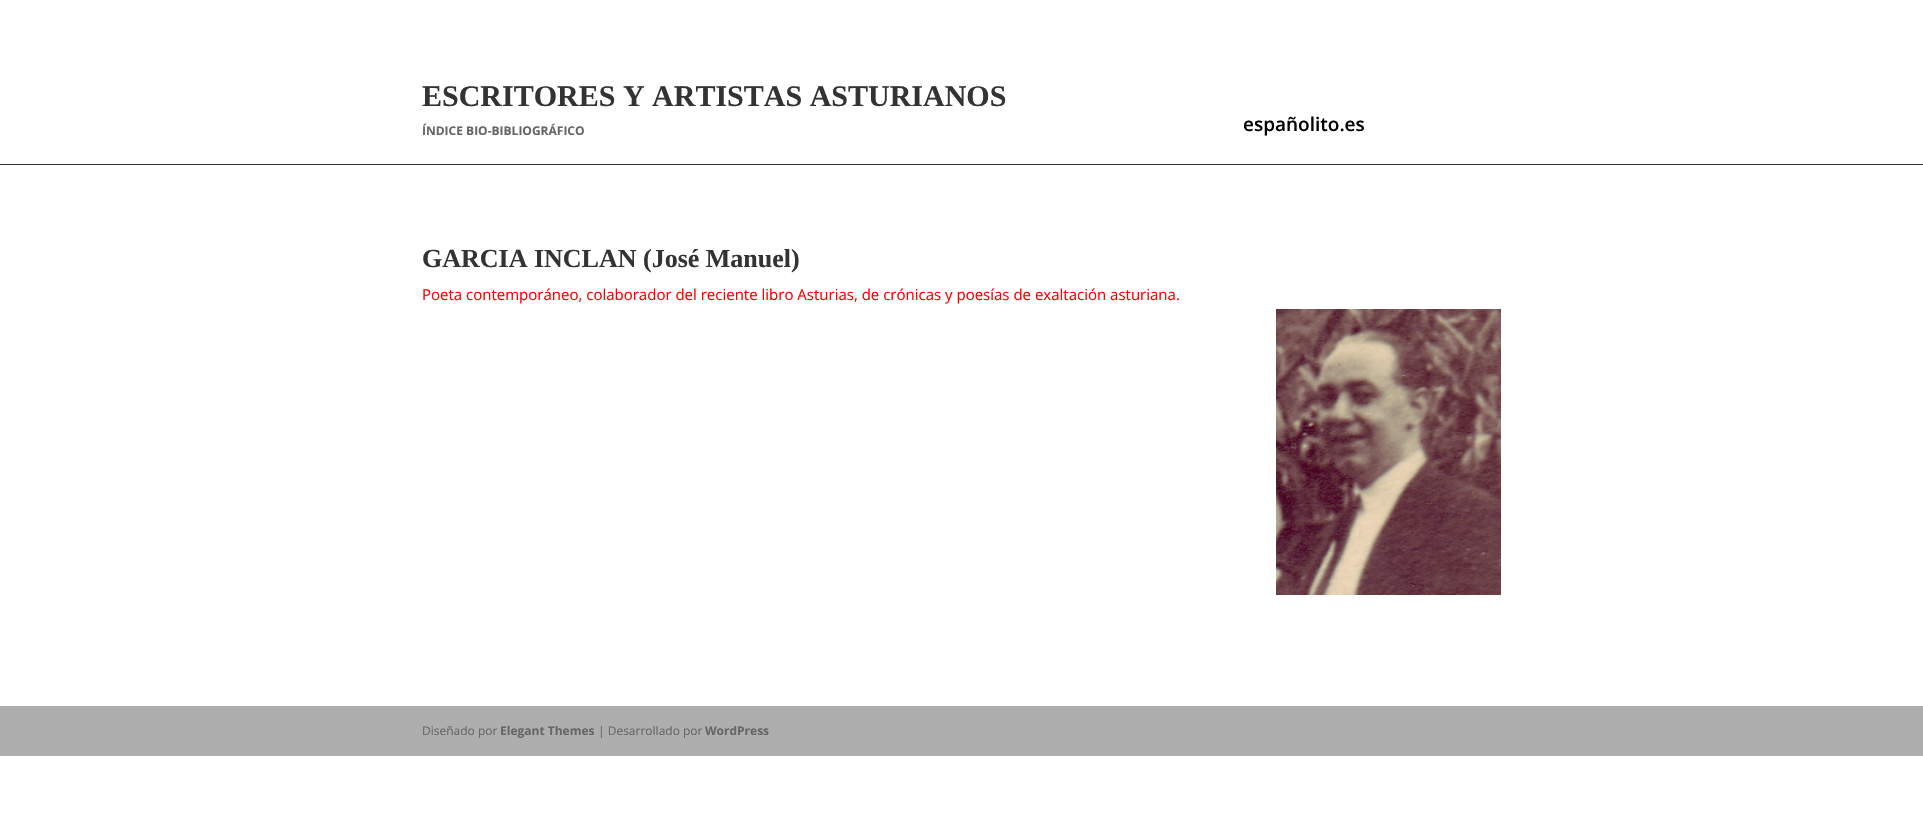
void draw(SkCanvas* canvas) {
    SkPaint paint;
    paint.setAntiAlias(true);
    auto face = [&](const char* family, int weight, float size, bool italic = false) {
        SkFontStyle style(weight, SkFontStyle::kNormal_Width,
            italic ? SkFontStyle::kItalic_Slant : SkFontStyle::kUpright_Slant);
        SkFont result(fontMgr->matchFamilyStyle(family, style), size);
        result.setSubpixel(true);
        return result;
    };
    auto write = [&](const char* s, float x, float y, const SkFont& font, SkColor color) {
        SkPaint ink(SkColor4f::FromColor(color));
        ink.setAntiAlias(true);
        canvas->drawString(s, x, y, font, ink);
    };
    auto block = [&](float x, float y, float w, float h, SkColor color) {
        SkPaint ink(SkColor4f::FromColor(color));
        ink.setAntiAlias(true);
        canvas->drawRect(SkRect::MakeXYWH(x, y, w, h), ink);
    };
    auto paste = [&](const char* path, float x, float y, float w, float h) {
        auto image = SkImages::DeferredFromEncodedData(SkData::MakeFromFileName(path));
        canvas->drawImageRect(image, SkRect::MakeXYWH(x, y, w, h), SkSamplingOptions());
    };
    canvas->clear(SK_ColorWHITE);
    block(0, 164, 1923, 1, SkColorSetRGB(51, 51, 51));
    auto kFont1 = face("Liberation Serif", 700, 30);
    write("ESCRITORES Y ARTISTAS ASTURIANOS", 422, 106, kFont1, SkColorSetRGB(51, 51, 51));
    auto kFont2 = face("Open Sans", 700, 12);
    write("ÍNDICE BIO-BIBLIOGRÁFICO", 422, 135, kFont2, SkColorSetRGB(102, 102, 102));
    auto kFont3 = face("Open Sans", 600, 19);
    write("españolito.es", 1243, 131, kFont3, SK_ColorBLACK);
    auto kFont4 = face("Liberation Serif", 700, 26);
    write("GARCIA INCLAN (José Manuel)", 422, 267, kFont4, SkColorSetRGB(51, 51, 51));
    auto kFont5 = face("Open Sans", 400, 15);
    write("Poeta contemporáneo, colaborador del reciente libro Asturias, de crónicas y poesías de exaltación asturiana.", 422, 300, kFont5, SkColorSetRGB(255, 0, 0));
    paste("pic1.png", 1276, 309, 225, 286);
    block(0, 706, 1923, 50, SkColorSetRGB(174, 174, 174));
    auto kFont6 = face("Open Sans", 400, 12);
    write("Diseñado por", 422, 735, kFont6, SkColorSetRGB(102, 102, 102));
    write("Elegant Themes", 500, 735, kFont2, SkColorSetRGB(102, 102, 102));
    write("| Desarrollado por", 598, 735, kFont6, SkColorSetRGB(102, 102, 102));
    write("WordPress", 705, 735, kFont2, SkColorSetRGB(102, 102, 102));
}
